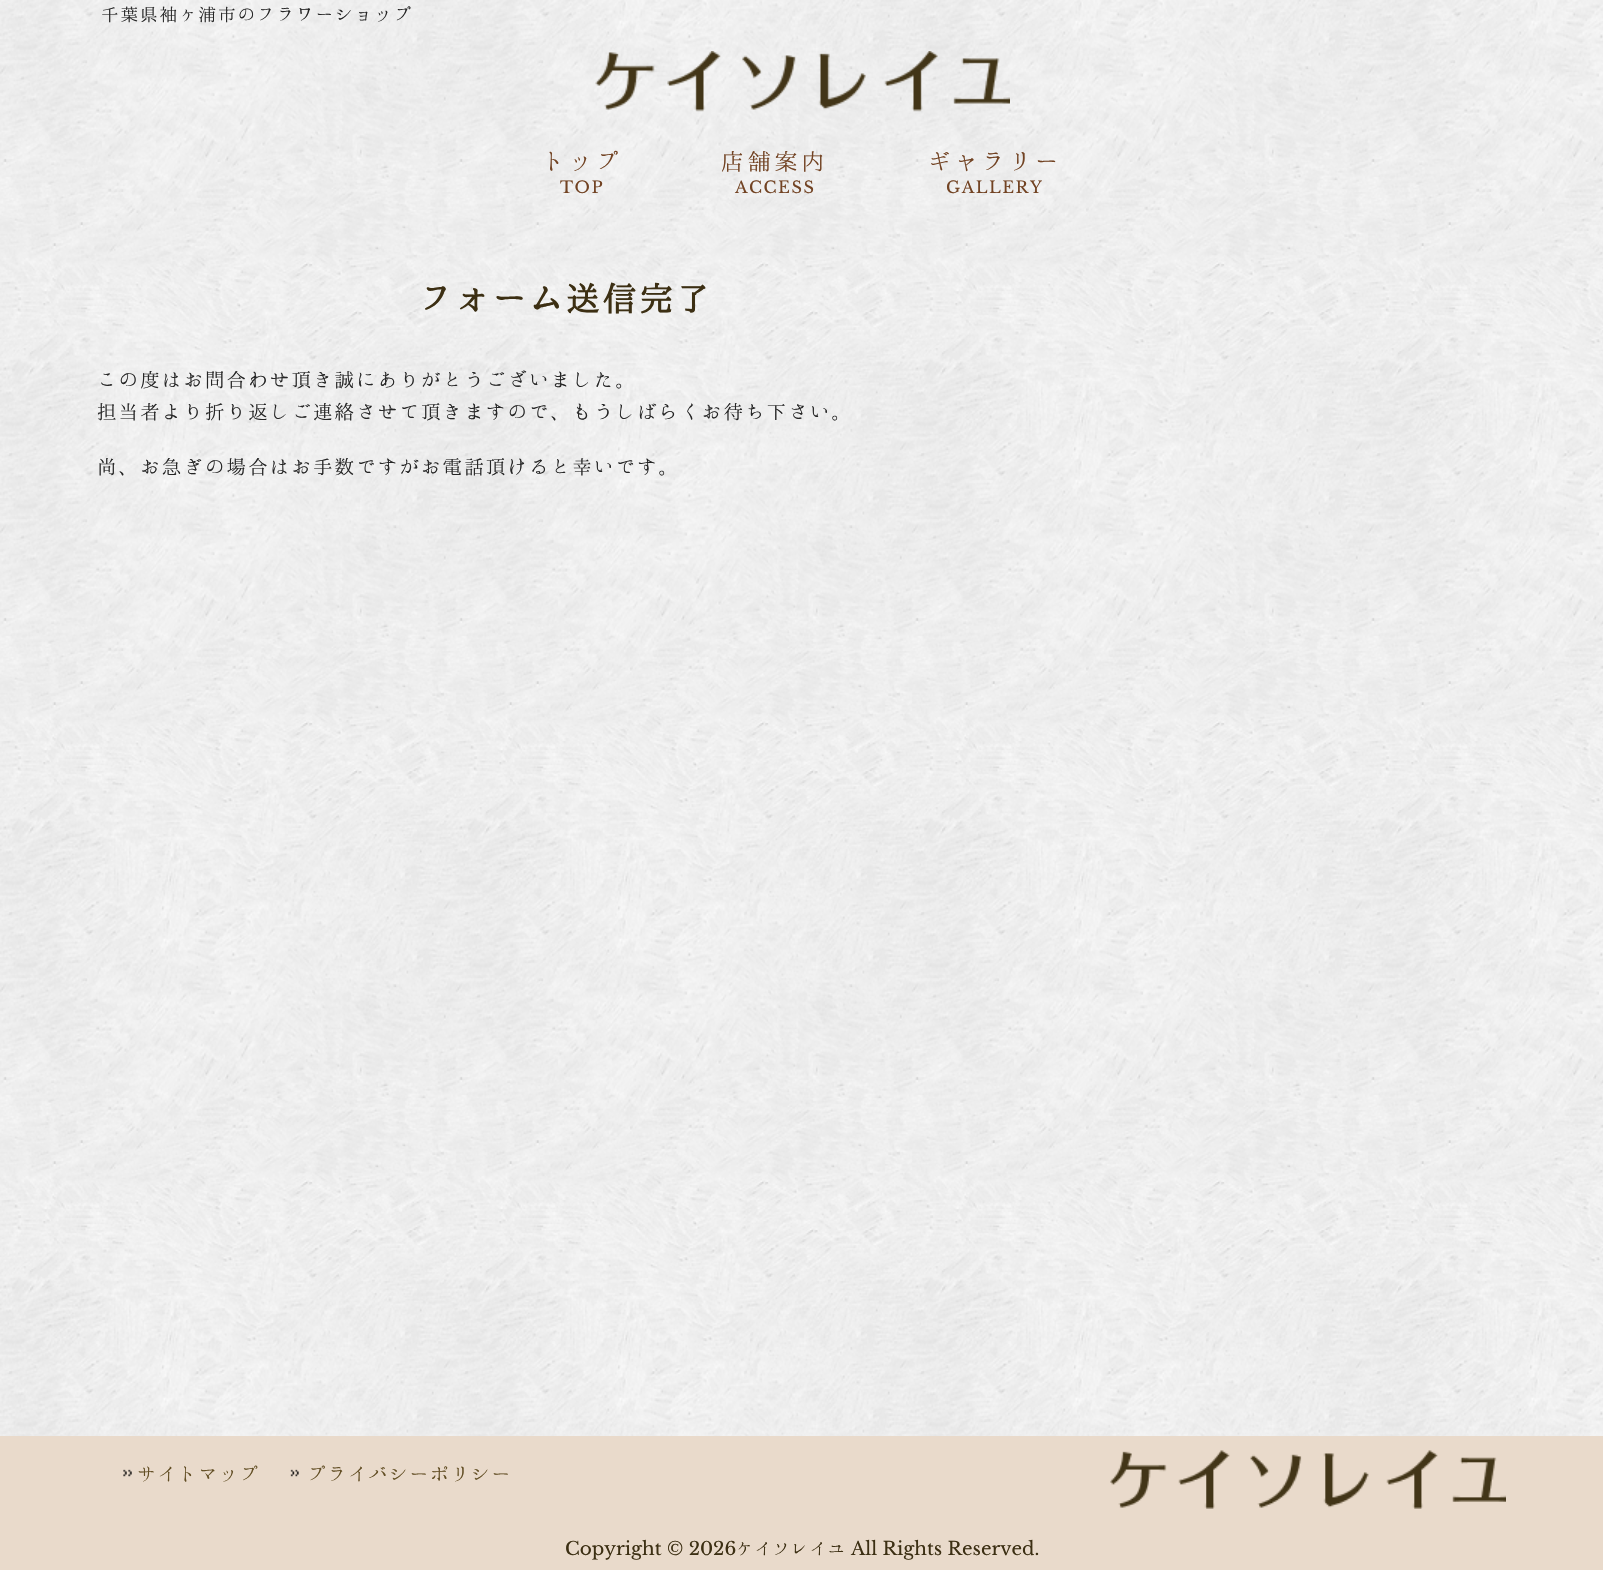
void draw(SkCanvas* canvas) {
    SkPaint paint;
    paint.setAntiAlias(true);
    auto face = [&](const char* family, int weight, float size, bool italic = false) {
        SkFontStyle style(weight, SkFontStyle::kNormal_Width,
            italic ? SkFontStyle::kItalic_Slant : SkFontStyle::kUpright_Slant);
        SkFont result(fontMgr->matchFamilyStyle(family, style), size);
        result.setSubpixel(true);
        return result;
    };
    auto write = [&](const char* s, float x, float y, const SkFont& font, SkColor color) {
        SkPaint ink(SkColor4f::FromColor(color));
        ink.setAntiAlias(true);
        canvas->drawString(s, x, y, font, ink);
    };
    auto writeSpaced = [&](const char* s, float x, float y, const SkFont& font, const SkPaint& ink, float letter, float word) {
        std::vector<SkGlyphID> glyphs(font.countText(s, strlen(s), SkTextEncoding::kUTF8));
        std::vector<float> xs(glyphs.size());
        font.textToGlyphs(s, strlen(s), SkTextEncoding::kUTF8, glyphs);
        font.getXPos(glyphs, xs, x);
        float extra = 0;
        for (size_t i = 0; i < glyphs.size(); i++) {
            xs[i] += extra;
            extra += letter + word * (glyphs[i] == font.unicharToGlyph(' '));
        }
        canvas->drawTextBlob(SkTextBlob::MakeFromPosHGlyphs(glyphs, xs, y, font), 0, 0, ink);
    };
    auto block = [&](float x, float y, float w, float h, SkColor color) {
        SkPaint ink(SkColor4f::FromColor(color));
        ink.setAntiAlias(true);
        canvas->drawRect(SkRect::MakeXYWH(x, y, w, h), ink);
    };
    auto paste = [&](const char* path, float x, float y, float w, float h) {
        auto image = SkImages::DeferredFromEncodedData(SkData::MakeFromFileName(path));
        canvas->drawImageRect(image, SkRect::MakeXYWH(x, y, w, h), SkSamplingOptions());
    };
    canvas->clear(SK_ColorWHITE);
    paste("pic1.png", 0, 0, 1603, 1436);
    auto kFont1 = face("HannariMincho", 400, 19.5f);
    write("千葉県袖ヶ浦市のフラワーショップ", 101, 21, kFont1, SkColorSetRGB(37, 37, 37));
    paste("pic2.png", 595, 51, 415, 61);
    auto kFont2 = face("HannariMincho", 400, 25.5f);
    paint.setColor(SkColorSetRGB(114, 67, 35));
    writeSpaced("トップ", 542, 170, kFont2, paint, 1.25f, 0);
    auto kFont3 = face("Libre Baskerville", 400, 16.25f);
    writeSpaced("TOP", 560, 193, kFont3, paint, 1.5f, 0);
    writeSpaced("店舗案内", 721, 170, kFont2, paint, 1.25f, 0);
    writeSpaced("ACCESS", 735, 193, kFont3, paint, 1.5f, 0);
    writeSpaced("ギャラリー", 928, 170, kFont2, paint, 1.25f, 0);
    writeSpaced("GALLERY", 946, 193, kFont3, paint, 1.5f, 0);
    auto kFont4 = face("HannariMincho", 700, 36.75f);
    write("フォーム送信完了", 419, 311, kFont4, SkColorSetRGB(60, 47, 19));
    auto kFont5 = face("HannariMincho", 400, 21.6f);
    write("この度はお問合わせ頂き誠にありがとうございました。", 97, 387, kFont5, SkColorSetRGB(37, 37, 37));
    write("担当者より折り返しご連絡させて頂きますので、もうしばらくお待ち下さい。", 97, 419, kFont5, SkColorSetRGB(37, 37, 37));
    write("尚、お急ぎの場合はお手数ですがお電話頂けると幸いです。", 97, 474, kFont5, SkColorSetRGB(37, 37, 37));
    block(0, 1436, 1603, 134, SkColorSetRGB(233, 218, 203));
    paste("pic3.png", 123, 1469, 9, 8);
    auto kFont6 = face("HannariMincho", 400, 20.5f);
    write("サイトマップ", 137, 1481, kFont6, SkColorSetRGB(98, 78, 36));
    paste("pic4.png", 290, 1469, 9, 8);
    write("プライバシーポリシー", 307, 1481, kFont6, SkColorSetRGB(98, 78, 36));
    paste("pic5.png", 1110, 1450, 396, 59);
    auto kFont7 = face("Libre Baskerville", 400, 18.4f);
    write("Copyright © 2026", 565, 1555, kFont7, SkColorSetRGB(60, 47, 19));
    auto kFont8 = face("HannariMincho", 400, 18.4f);
    write("ケイソレイユ", 736, 1555, kFont8, SkColorSetRGB(60, 47, 19));
    write("All Rights Reserved.", 851, 1555, kFont7, SkColorSetRGB(60, 47, 19));
}
